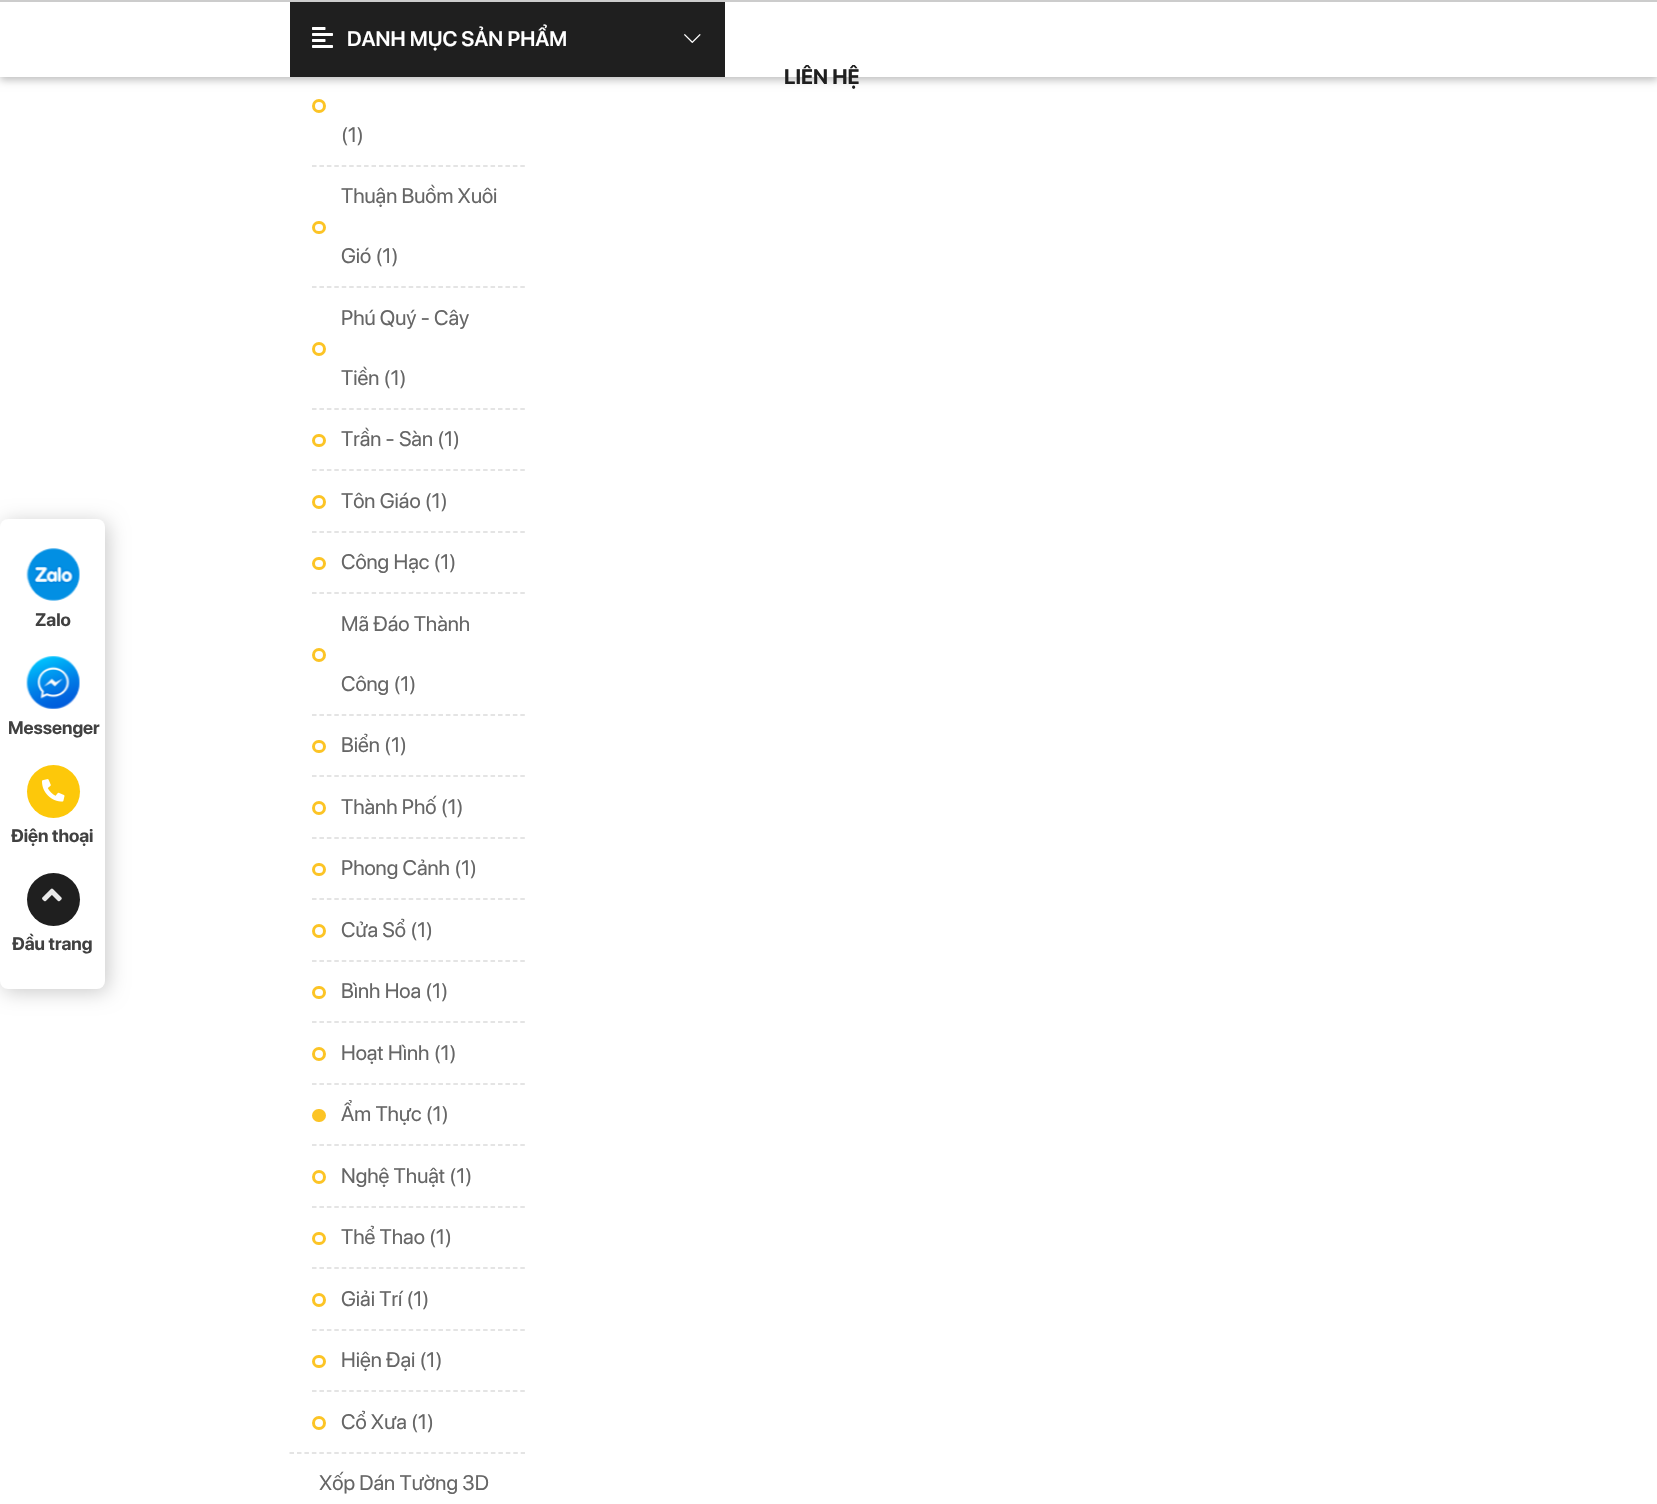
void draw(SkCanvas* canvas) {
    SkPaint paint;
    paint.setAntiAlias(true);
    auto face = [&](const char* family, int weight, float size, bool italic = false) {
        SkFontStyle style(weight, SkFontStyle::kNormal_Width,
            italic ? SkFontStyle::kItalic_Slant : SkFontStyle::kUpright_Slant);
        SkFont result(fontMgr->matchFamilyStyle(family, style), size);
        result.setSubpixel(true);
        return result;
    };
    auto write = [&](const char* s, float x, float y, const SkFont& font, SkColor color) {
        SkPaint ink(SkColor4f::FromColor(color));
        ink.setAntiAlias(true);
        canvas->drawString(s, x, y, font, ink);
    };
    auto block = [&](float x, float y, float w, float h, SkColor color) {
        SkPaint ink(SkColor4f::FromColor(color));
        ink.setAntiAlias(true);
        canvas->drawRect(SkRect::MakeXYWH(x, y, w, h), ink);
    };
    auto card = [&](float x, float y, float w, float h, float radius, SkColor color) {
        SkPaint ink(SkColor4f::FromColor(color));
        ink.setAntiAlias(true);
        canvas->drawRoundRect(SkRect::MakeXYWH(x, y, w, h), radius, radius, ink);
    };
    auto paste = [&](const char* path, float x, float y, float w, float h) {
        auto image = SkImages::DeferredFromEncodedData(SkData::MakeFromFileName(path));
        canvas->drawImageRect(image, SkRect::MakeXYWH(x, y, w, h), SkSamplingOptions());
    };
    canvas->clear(SK_ColorWHITE);
    paint.setColor(SkColorSetARGB(66, 0, 0, 0));
    paint.setMaskFilter(SkMaskFilter::MakeBlur(kNormal_SkBlurStyle, 4));
    canvas->drawRect(SkRect::MakeXYWH(0, 3, 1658, 77), paint);
    paint.setMaskFilter(nullptr);
    block(0, 2, 1657, 75, SK_ColorWHITE);
    block(0, 0, 1657, 2, SkColorSetRGB(204, 204, 204));
    block(290, 2, 435, 75, SkColorSetRGB(31, 31, 31));
    paste("pic1.png", 312, 27, 21, 21);
    auto kFont1 = face("SF Pro Display", 600, 21);
    write("DANH MỤC SẢN PHẨM", 347, 46, kFont1, SK_ColorWHITE);
    paste("pic2.png", 684, 34, 17, 9);
    auto kFont2 = face("SF Pro Display", 700, 21);
    write("LIÊN HỆ", 784, 84, kFont2, SkColorSetRGB(31, 31, 31));
    paint.setColor(SkColorSetRGB(202, 202, 202));
    paint.setMaskFilter(SkMaskFilter::MakeBlur(kNormal_SkBlurStyle, 10));
    canvas->drawRoundRect(SkRect::MakeXYWH(3, 522, 105, 470), 8, 8, paint);
    paint.setMaskFilter(nullptr);
    card(0, 519, 105, 470, 8, SK_ColorWHITE);
    paste("pic3.png", 26, 548, 54, 53);
    auto kFont3 = face("SF Pro Display", 700, 18);
    write("Zalo", 35, 626, kFont3, SkColorSetRGB(65, 65, 65));
    paste("pic4.png", 26, 656, 54, 53);
    write("Messenger", 8, 734, kFont3, SkColorSetRGB(65, 65, 65));
    paint.setColor(SkColorSetRGB(253, 200, 10));
    canvas->drawCircle(53.5f, 791.5f, 26.5f, paint);
    paste("pic5.png", 42, 779, 23, 23);
    write("Điện thoại", 11, 842, kFont3, SkColorSetRGB(65, 65, 65));
    paint.setColor(SkColorSetRGB(31, 31, 31));
    canvas->drawCircle(53.5f, 899.5f, 26.5f, paint);
    paste("pic6.png", 42, 888, 20, 14);
    write("Đầu trang", 12, 950, kFont3, SkColorSetRGB(65, 65, 65));
    paint.setStyle(SkPaint::kStroke_Style);
    paint.setStrokeWidth(1.5f);
    paint.setColor(SkColorSetRGB(219, 219, 219));
    paint.setPathEffect(SkDashPathEffect::Make({{4.5f, 2.96f}}, 0));
    canvas->drawPath(SkPathBuilder().moveTo(289.5f, 1453).lineTo(525, 1453).detach(), paint);
    paint.setPathEffect(nullptr);
    paint.setPathEffect(SkDashPathEffect::Make({{4.5f, 2.94f}}, 0));
    canvas->drawPath(SkPathBuilder().moveTo(312, 166).lineTo(525, 166).detach(), paint);
    paint.setPathEffect(nullptr);
    paint.setStrokeWidth(3);
    paint.setColor(SkColorSetRGB(252, 196, 37));
    canvas->drawCircle(319, 106, 5.5f, paint);
    auto kFont4 = face("SF Pro Display", 400, 21);
    write("(1)", 341, 142, kFont4, SkColorSetRGB(102, 102, 102));
    paint.setStrokeWidth(1.5f);
    paint.setColor(SkColorSetRGB(219, 219, 219));
    paint.setPathEffect(SkDashPathEffect::Make({{4.5f, 2.94f}}, 0));
    canvas->drawPath(SkPathBuilder().moveTo(312, 287).lineTo(525, 287).detach(), paint);
    paint.setPathEffect(nullptr);
    write("Thuận Buồm Xuôi", 341, 203, kFont4, SkColorSetRGB(102, 102, 102));
    paint.setStrokeWidth(3);
    paint.setColor(SkColorSetRGB(252, 196, 37));
    canvas->drawRoundRect(SkRect::MakeXYWH(313.5f, 222.5f, 11, 10), 5, 5, paint);
    write("Gió (1)", 341, 263, kFont4, SkColorSetRGB(102, 102, 102));
    paint.setStrokeWidth(1.5f);
    paint.setColor(SkColorSetRGB(219, 219, 219));
    paint.setPathEffect(SkDashPathEffect::Make({{4.5f, 2.94f}}, 0));
    canvas->drawPath(SkPathBuilder().moveTo(312, 409).lineTo(525, 409).detach(), paint);
    paint.setPathEffect(nullptr);
    write("Phú Quý - Cây", 341, 325, kFont4, SkColorSetRGB(102, 102, 102));
    paint.setStrokeWidth(3);
    paint.setColor(SkColorSetRGB(252, 196, 37));
    canvas->drawCircle(319, 349, 5.5f, paint);
    write("Tiền (1)", 341, 385, kFont4, SkColorSetRGB(102, 102, 102));
    paint.setStrokeWidth(1.5f);
    paint.setColor(SkColorSetRGB(219, 219, 219));
    paint.setPathEffect(SkDashPathEffect::Make({{4.5f, 2.94f}}, 0));
    canvas->drawPath(SkPathBuilder().moveTo(312, 470).lineTo(525, 470).detach(), paint);
    paint.setPathEffect(nullptr);
    paint.setStrokeWidth(3);
    paint.setColor(SkColorSetRGB(252, 196, 37));
    canvas->drawRoundRect(SkRect::MakeXYWH(313.5f, 435.5f, 11, 10), 5, 5, paint);
    write("Trần - Sàn (1)", 341, 446, kFont4, SkColorSetRGB(102, 102, 102));
    paint.setStrokeWidth(1.5f);
    paint.setColor(SkColorSetRGB(219, 219, 219));
    paint.setPathEffect(SkDashPathEffect::Make({{4.5f, 2.94f}}, 0));
    canvas->drawPath(SkPathBuilder().moveTo(312, 532).lineTo(525, 532).detach(), paint);
    paint.setPathEffect(nullptr);
    paint.setStrokeWidth(3);
    paint.setColor(SkColorSetRGB(252, 196, 37));
    canvas->drawCircle(319, 502, 5.5f, paint);
    write("Tôn Giáo (1)", 341, 508, kFont4, SkColorSetRGB(102, 102, 102));
    paint.setStrokeWidth(1.5f);
    paint.setColor(SkColorSetRGB(219, 219, 219));
    paint.setPathEffect(SkDashPathEffect::Make({{4.5f, 2.94f}}, 0));
    canvas->drawPath(SkPathBuilder().moveTo(312, 593).lineTo(525, 593).detach(), paint);
    paint.setPathEffect(nullptr);
    paint.setStrokeWidth(3);
    paint.setColor(SkColorSetRGB(252, 196, 37));
    canvas->drawRoundRect(SkRect::MakeXYWH(313.5f, 558.5f, 11, 10), 5, 5, paint);
    write("Công Hạc (1)", 341, 569, kFont4, SkColorSetRGB(102, 102, 102));
    paint.setStrokeWidth(1.5f);
    paint.setColor(SkColorSetRGB(219, 219, 219));
    paint.setPathEffect(SkDashPathEffect::Make({{4.5f, 2.94f}}, 0));
    canvas->drawPath(SkPathBuilder().moveTo(312, 715).lineTo(525, 715).detach(), paint);
    paint.setPathEffect(nullptr);
    write("Mã Đáo Thành", 341, 631, kFont4, SkColorSetRGB(102, 102, 102));
    paint.setStrokeWidth(3);
    paint.setColor(SkColorSetRGB(252, 196, 37));
    canvas->drawCircle(319, 655, 5.5f, paint);
    write("Công (1)", 341, 691, kFont4, SkColorSetRGB(102, 102, 102));
    paint.setStrokeWidth(1.5f);
    paint.setColor(SkColorSetRGB(219, 219, 219));
    paint.setPathEffect(SkDashPathEffect::Make({{4.5f, 2.94f}}, 0));
    canvas->drawPath(SkPathBuilder().moveTo(312, 776).lineTo(525, 776).detach(), paint);
    paint.setPathEffect(nullptr);
    paint.setStrokeWidth(3);
    paint.setColor(SkColorSetRGB(252, 196, 37));
    canvas->drawRoundRect(SkRect::MakeXYWH(313.5f, 741.5f, 11, 10), 5, 5, paint);
    write("Biển (1)", 341, 752, kFont4, SkColorSetRGB(102, 102, 102));
    paint.setStrokeWidth(1.5f);
    paint.setColor(SkColorSetRGB(219, 219, 219));
    paint.setPathEffect(SkDashPathEffect::Make({{4.5f, 2.94f}}, 0));
    canvas->drawPath(SkPathBuilder().moveTo(312, 838).lineTo(525, 838).detach(), paint);
    paint.setPathEffect(nullptr);
    paint.setStrokeWidth(3);
    paint.setColor(SkColorSetRGB(252, 196, 37));
    canvas->drawCircle(319, 808, 5.5f, paint);
    write("Thành Phố (1)", 341, 814, kFont4, SkColorSetRGB(102, 102, 102));
    paint.setStrokeWidth(1.5f);
    paint.setColor(SkColorSetRGB(219, 219, 219));
    paint.setPathEffect(SkDashPathEffect::Make({{4.5f, 2.94f}}, 0));
    canvas->drawPath(SkPathBuilder().moveTo(312, 899).lineTo(525, 899).detach(), paint);
    paint.setPathEffect(nullptr);
    paint.setStrokeWidth(3);
    paint.setColor(SkColorSetRGB(252, 196, 37));
    canvas->drawRoundRect(SkRect::MakeXYWH(313.5f, 864.5f, 11, 10), 5, 5, paint);
    write("Phong Cảnh (1)", 341, 875, kFont4, SkColorSetRGB(102, 102, 102));
    paint.setStrokeWidth(1.5f);
    paint.setColor(SkColorSetRGB(219, 219, 219));
    paint.setPathEffect(SkDashPathEffect::Make({{4.5f, 2.94f}}, 0));
    canvas->drawPath(SkPathBuilder().moveTo(312, 961).lineTo(525, 961).detach(), paint);
    paint.setPathEffect(nullptr);
    paint.setStrokeWidth(3);
    paint.setColor(SkColorSetRGB(252, 196, 37));
    canvas->drawCircle(319, 931, 5.5f, paint);
    write("Cửa Sổ (1)", 341, 937, kFont4, SkColorSetRGB(102, 102, 102));
    paint.setStrokeWidth(1.5f);
    paint.setColor(SkColorSetRGB(219, 219, 219));
    paint.setPathEffect(SkDashPathEffect::Make({{4.5f, 2.94f}}, 0));
    canvas->drawPath(SkPathBuilder().moveTo(312, 1022).lineTo(525, 1022).detach(), paint);
    paint.setPathEffect(nullptr);
    paint.setStrokeWidth(3);
    paint.setColor(SkColorSetRGB(252, 196, 37));
    canvas->drawRoundRect(SkRect::MakeXYWH(313.5f, 987.5f, 11, 10), 5, 5, paint);
    write("Bình Hoa (1)", 341, 998, kFont4, SkColorSetRGB(102, 102, 102));
    paint.setStrokeWidth(1.5f);
    paint.setColor(SkColorSetRGB(219, 219, 219));
    paint.setPathEffect(SkDashPathEffect::Make({{4.5f, 2.94f}}, 0));
    canvas->drawPath(SkPathBuilder().moveTo(312, 1084).lineTo(525, 1084).detach(), paint);
    paint.setPathEffect(nullptr);
    paint.setStrokeWidth(3);
    paint.setColor(SkColorSetRGB(252, 196, 37));
    canvas->drawCircle(319, 1054, 5.5f, paint);
    write("Hoạt Hình (1)", 341, 1060, kFont4, SkColorSetRGB(102, 102, 102));
    paint.setStrokeWidth(1.5f);
    paint.setColor(SkColorSetRGB(219, 219, 219));
    paint.setPathEffect(SkDashPathEffect::Make({{4.5f, 2.94f}}, 0));
    canvas->drawPath(SkPathBuilder().moveTo(312, 1145).lineTo(525, 1145).detach(), paint);
    paint.setPathEffect(nullptr);
    paint.setStyle(SkPaint::kFill_Style);
    paint.setColor(SkColorSetRGB(252, 196, 37));
    canvas->drawRoundRect(SkRect::MakeXYWH(313.5f, 1110.5f, 11, 10), 5, 5, paint);
    paint.setStyle(SkPaint::kStroke_Style);
    paint.setStrokeWidth(3);
    canvas->drawRoundRect(SkRect::MakeXYWH(313.5f, 1110.5f, 11, 10), 5, 5, paint);
    write("Ẩm Thực (1)", 341, 1121, kFont4, SkColorSetRGB(102, 102, 102));
    paint.setStrokeWidth(1.5f);
    paint.setColor(SkColorSetRGB(219, 219, 219));
    paint.setPathEffect(SkDashPathEffect::Make({{4.5f, 2.94f}}, 0));
    canvas->drawPath(SkPathBuilder().moveTo(312, 1207).lineTo(525, 1207).detach(), paint);
    paint.setPathEffect(nullptr);
    paint.setStrokeWidth(3);
    paint.setColor(SkColorSetRGB(252, 196, 37));
    canvas->drawCircle(319, 1177, 5.5f, paint);
    write("Nghệ Thuật (1)", 341, 1183, kFont4, SkColorSetRGB(102, 102, 102));
    paint.setStrokeWidth(1.5f);
    paint.setColor(SkColorSetRGB(219, 219, 219));
    paint.setPathEffect(SkDashPathEffect::Make({{4.5f, 2.94f}}, 0));
    canvas->drawPath(SkPathBuilder().moveTo(312, 1268).lineTo(525, 1268).detach(), paint);
    paint.setPathEffect(nullptr);
    paint.setStrokeWidth(3);
    paint.setColor(SkColorSetRGB(252, 196, 37));
    canvas->drawRoundRect(SkRect::MakeXYWH(313.5f, 1233.5f, 11, 10), 5, 5, paint);
    write("Thể Thao (1)", 341, 1244, kFont4, SkColorSetRGB(102, 102, 102));
    paint.setStrokeWidth(1.5f);
    paint.setColor(SkColorSetRGB(219, 219, 219));
    paint.setPathEffect(SkDashPathEffect::Make({{4.5f, 2.94f}}, 0));
    canvas->drawPath(SkPathBuilder().moveTo(312, 1330).lineTo(525, 1330).detach(), paint);
    paint.setPathEffect(nullptr);
    paint.setStrokeWidth(3);
    paint.setColor(SkColorSetRGB(252, 196, 37));
    canvas->drawCircle(319, 1300, 5.5f, paint);
    write("Giải Trí (1)", 341, 1306, kFont4, SkColorSetRGB(102, 102, 102));
    paint.setStrokeWidth(1.5f);
    paint.setColor(SkColorSetRGB(219, 219, 219));
    paint.setPathEffect(SkDashPathEffect::Make({{4.5f, 2.94f}}, 0));
    canvas->drawPath(SkPathBuilder().moveTo(312, 1391).lineTo(525, 1391).detach(), paint);
    paint.setPathEffect(nullptr);
    paint.setStrokeWidth(3);
    paint.setColor(SkColorSetRGB(252, 196, 37));
    canvas->drawRoundRect(SkRect::MakeXYWH(313.5f, 1356.5f, 11, 10), 5, 5, paint);
    write("Hiện Đại (1)", 341, 1367, kFont4, SkColorSetRGB(102, 102, 102));
    canvas->drawCircle(319, 1423, 5.5f, paint);
    write("Cổ Xưa (1)", 341, 1429, kFont4, SkColorSetRGB(102, 102, 102));
    write("Xốp Dán Tường 3D", 319, 1490, kFont4, SkColorSetRGB(102, 102, 102));
}
